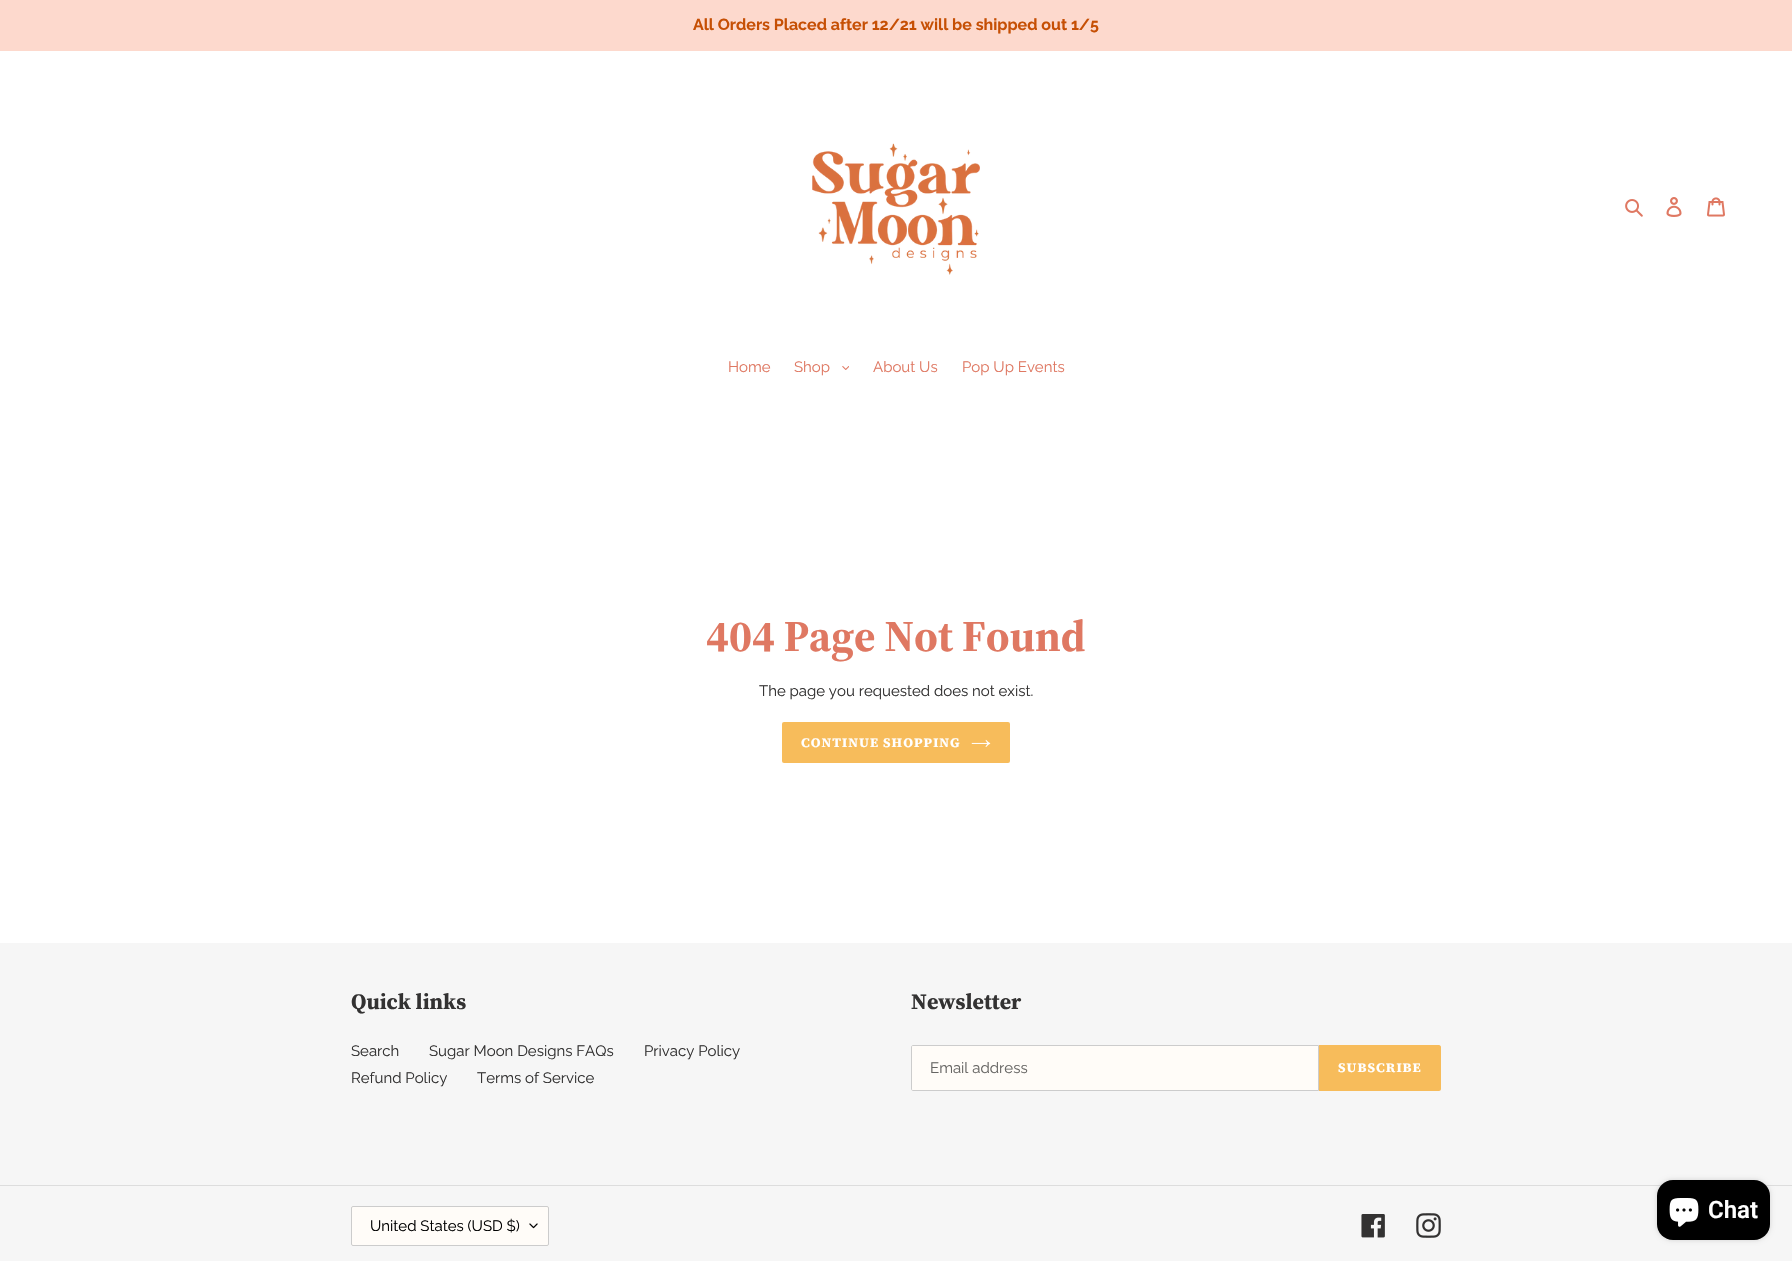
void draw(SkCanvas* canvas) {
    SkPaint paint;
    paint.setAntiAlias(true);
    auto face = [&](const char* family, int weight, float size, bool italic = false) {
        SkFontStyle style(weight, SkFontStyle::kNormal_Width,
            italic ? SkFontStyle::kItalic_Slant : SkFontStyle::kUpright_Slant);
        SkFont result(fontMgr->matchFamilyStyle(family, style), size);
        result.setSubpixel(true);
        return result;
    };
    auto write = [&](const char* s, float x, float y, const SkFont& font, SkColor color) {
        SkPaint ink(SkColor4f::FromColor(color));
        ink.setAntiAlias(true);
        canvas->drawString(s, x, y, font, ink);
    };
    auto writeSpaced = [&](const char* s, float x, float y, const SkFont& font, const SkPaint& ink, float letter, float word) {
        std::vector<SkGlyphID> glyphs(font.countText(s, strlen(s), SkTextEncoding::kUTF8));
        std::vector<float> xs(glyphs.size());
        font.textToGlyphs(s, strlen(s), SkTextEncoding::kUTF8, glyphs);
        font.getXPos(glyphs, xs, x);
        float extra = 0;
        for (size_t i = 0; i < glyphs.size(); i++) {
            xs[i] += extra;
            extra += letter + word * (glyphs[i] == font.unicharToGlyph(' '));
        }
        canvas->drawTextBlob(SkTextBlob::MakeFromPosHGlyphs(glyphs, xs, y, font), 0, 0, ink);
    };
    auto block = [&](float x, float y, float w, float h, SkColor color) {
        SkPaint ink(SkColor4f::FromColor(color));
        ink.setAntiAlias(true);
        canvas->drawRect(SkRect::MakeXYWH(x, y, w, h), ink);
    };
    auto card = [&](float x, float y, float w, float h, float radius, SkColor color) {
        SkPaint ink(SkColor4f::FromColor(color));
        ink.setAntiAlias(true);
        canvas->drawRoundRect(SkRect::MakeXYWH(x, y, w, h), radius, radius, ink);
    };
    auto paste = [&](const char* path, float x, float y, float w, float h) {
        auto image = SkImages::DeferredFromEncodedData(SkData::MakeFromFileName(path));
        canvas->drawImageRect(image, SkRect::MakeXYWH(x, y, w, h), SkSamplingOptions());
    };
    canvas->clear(SK_ColorWHITE);
    block(0, 0, 1792, 51, SkColorSetRGB(253, 217, 205));
    auto kFont1 = face("Raleway", 700, 16);
    write("All Orders Placed after 12/21 will be shipped out 1/5", 693, 30, kFont1, SkColorSetRGB(198, 79, 4));
    paste("pic1.png", 812, 143, 168, 132);
    paste("pic2.png", 1625, 199, 18, 18);
    paste("pic3.png", 1666, 197, 16, 20);
    paste("pic4.png", 1707, 197, 18, 20);
    auto kFont2 = face("Raleway", 400, 15);
    write("Home", 728, 372, kFont2, SkColorSetRGB(223, 120, 98));
    write("Shop", 794, 372, kFont2, SkColorSetRGB(223, 120, 98));
    paste("pic5.png", 842, 366, 7, 4);
    write("About Us", 873, 372, kFont2, SkColorSetRGB(223, 120, 98));
    write("Pop Up Events", 962, 372, kFont2, SkColorSetRGB(223, 120, 98));
    auto kFont3 = face("Source Serif 4", 700, 44);
    write("404 Page Not Found", 706, 651, kFont3, SkColorSetRGB(223, 120, 98));
    write("The page you requested does not exist.", 759, 696, kFont2, SkColorSetRGB(51, 50, 50));
    card(782, 722, 228, 41, 2, SkColorSetRGB(247, 188, 91));
    auto kFont4 = face("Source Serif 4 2", 700, 13);
    paint.setColor(SK_ColorWHITE);
    writeSpaced("CONTINUE SHOPPING", 801, 747, kFont4, paint, 1, 0);
    paste("pic6.png", 971, 739, 20, 8);
    block(0, 943, 1792, 318, SkColorSetRGB(246, 246, 246));
    auto kFont5 = face("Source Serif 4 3", 700, 22);
    write("Quick links", 351, 1009, kFont5, SkColorSetRGB(51, 50, 50));
    write("Search", 351, 1056, kFont2, SkColorSetRGB(51, 50, 50));
    write("Sugar Moon Designs FAQs", 429, 1056, kFont2, SkColorSetRGB(51, 50, 50));
    write("Privacy Policy", 644, 1056, kFont2, SkColorSetRGB(51, 50, 50));
    write("Refund Policy", 351, 1083, kFont2, SkColorSetRGB(51, 50, 50));
    write("Terms of Service", 477, 1083, kFont2, SkColorSetRGB(51, 50, 50));
    write("Newsletter", 911, 1009, kFont5, SkColorSetRGB(51, 50, 50));
    paint.setColor(SkColorSetRGB(255, 252, 248));
    canvas->drawPath(SkPathBuilder().moveTo(913, 1045.5f).lineTo(1318.5f, 1045.5f).lineTo(1318.5f, 1090.5f).lineTo(913, 1090.5f).cubicTo(912, 1090.5f, 911.5f, 1090, 911.5f, 1089).lineTo(911.5f, 1047).cubicTo(911.5f, 1046, 912, 1045.5f, 913, 1045.5f).close().detach(), paint);
    paint.setStyle(SkPaint::kStroke_Style);
    paint.setStrokeWidth(1);
    paint.setColor(SkColorSetRGB(204, 204, 204));
    canvas->drawPath(SkPathBuilder().moveTo(913, 1045.5f).lineTo(1318.5f, 1045.5f).lineTo(1318.5f, 1090.5f).lineTo(913, 1090.5f).cubicTo(912, 1090.5f, 911.5f, 1090, 911.5f, 1089).lineTo(911.5f, 1047).cubicTo(911.5f, 1046, 912, 1045.5f, 913, 1045.5f).close().detach(), paint);
    write("Email address", 930, 1073, kFont2, SkColorSetRGB(102, 101, 99));
    paint.setStyle(SkPaint::kFill_Style);
    paint.setColor(SkColorSetRGB(247, 188, 91));
    canvas->drawPath(SkPathBuilder().moveTo(1319, 1045).lineTo(1439, 1045).cubicTo(1440, 1045, 1441, 1046, 1441, 1047).lineTo(1441, 1089).cubicTo(1441, 1090, 1440, 1091, 1439, 1091).lineTo(1319, 1091).close().detach(), paint);
    paint.setColor(SK_ColorWHITE);
    writeSpaced("SUBSCRIBE", 1338, 1072, kFont4, paint, 1, 0);
    block(0, 1185, 1792, 1, SkColorSetRGB(221, 221, 221));
    card(351, 1206, 198, 40, 2, SkColorSetRGB(255, 252, 248));
    paste("pic7.png", 529, 1223, 9, 6);
    paint.setStyle(SkPaint::kStroke_Style);
    paint.setColor(SkColorSetRGB(204, 204, 204));
    canvas->drawRoundRect(SkRect::MakeXYWH(351.5f, 1206.5f, 197, 39), 1.5f, 1.5f, paint);
    write("United States (USD $)", 370, 1231, kFont2, SK_ColorBLACK);
    paste("pic8.png", 1361, 1214, 24, 24);
    paste("pic9.png", 1416, 1213, 25, 25);
    paint.setStyle(SkPaint::kFill_Style);
    paint.setColor(SkColorSetARGB(38, 0, 0, 0));
    paint.setMaskFilter(SkMaskFilter::MakeBlur(kNormal_SkBlurStyle, 2.5f));
    canvas->drawRoundRect(SkRect::MakeXYWH(1657, 1180, 113, 60), 16, 16, paint);
    paint.setMaskFilter(nullptr);
    card(1657, 1180, 113, 60, 16, SK_ColorBLACK);
    paste("pic10.png", 1669, 1198, 30, 29);
    auto kFont6 = face("Roboto", 600, 24);
    write("Chat", 1708, 1218, kFont6, SK_ColorWHITE);
}
